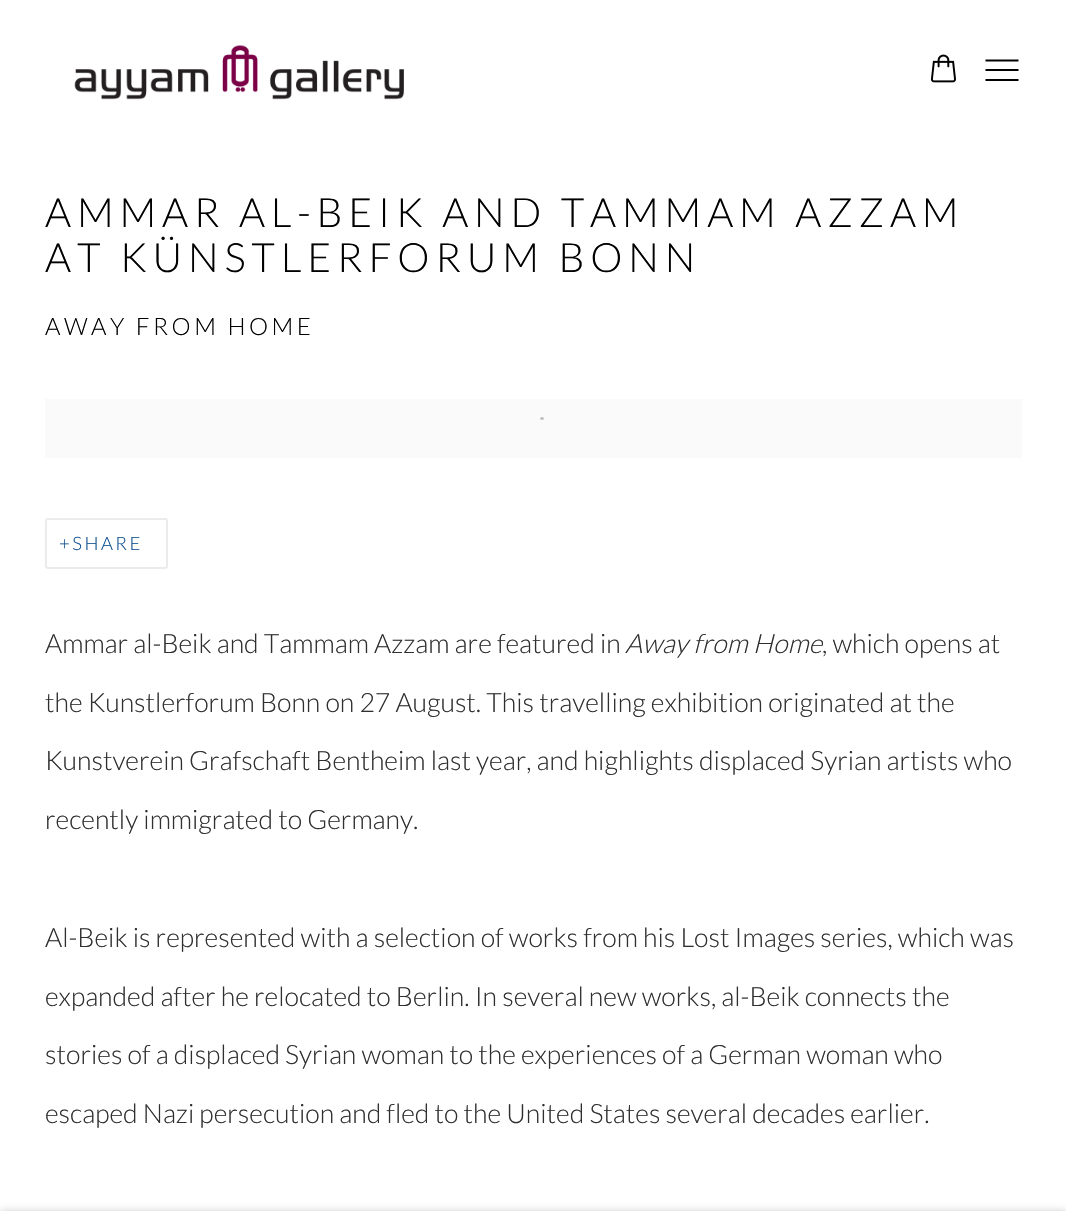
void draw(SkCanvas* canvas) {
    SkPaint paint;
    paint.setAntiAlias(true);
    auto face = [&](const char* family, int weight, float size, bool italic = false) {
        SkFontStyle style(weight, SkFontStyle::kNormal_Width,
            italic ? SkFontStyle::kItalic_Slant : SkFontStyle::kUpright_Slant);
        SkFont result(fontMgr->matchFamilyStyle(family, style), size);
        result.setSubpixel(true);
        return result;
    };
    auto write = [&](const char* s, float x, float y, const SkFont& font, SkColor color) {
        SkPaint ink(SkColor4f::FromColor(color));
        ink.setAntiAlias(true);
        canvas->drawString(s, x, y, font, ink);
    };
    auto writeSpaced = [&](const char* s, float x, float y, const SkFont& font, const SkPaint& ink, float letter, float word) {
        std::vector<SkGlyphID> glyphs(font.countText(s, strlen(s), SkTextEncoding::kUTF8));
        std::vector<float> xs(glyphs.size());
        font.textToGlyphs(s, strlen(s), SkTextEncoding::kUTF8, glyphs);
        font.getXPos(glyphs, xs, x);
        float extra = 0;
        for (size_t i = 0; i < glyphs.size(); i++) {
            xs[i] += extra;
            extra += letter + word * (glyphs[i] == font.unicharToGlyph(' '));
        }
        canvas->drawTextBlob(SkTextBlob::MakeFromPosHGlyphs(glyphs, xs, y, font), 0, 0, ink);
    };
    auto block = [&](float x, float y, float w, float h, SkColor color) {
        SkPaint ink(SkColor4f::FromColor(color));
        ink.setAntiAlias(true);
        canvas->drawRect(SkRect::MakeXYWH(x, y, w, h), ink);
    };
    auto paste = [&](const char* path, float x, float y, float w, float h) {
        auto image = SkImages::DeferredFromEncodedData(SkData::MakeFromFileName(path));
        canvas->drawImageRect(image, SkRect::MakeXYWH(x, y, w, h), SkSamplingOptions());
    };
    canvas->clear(SK_ColorWHITE);
    paste("pic1.png", 74, 45, 330, 55);
    paste("pic2.png", 931, 54, 25, 29);
    paint.setColor(SK_ColorBLACK);
    canvas->drawPath(SkPathBuilder().moveTo(985.5f, 81).lineTo(985.5f, 79).lineTo(1018.5f, 79).lineTo(1018.5f, 81).close().moveTo(985.5f, 71).lineTo(985.5f, 69).lineTo(1018.5f, 69).lineTo(1018.5f, 71).close().moveTo(985.5f, 61.5f).lineTo(985.5f, 59.5f).lineTo(1018.5f, 59.5f).lineTo(1018.5f, 61.5f).close().detach(), paint);
    auto kFont1 = face("Lato", 300, 40.4f);
    writeSpaced("AMMAR AL-BEIK AND TAMMAM AZZAM", 45, 227, kFont1, paint, 5.85f, 0);
    writeSpaced("AT KÜNSTLERFORUM BONN", 45, 272, kFont1, paint, 5.85f, 0);
    auto kFont2 = face("Lato", 300, 23.9f);
    writeSpaced("AWAY FROM HOME", 45, 335, kFont2, paint, 3.5f, 0);
    block(45, 399, 977, 59, SkColorSetRGB(250, 250, 250));
    paint.setStyle(SkPaint::kStroke_Style);
    paint.setStrokeWidth(2.7f);
    paint.setStrokeCap(SkPaint::kRound_Cap);
    paint.setColor(SkColorSetRGB(187, 187, 187));
    canvas->drawPath(SkPathBuilder().moveTo(541.5f, 418.5f).lineTo(542.5f, 418.5f).detach(), paint);
    paint.setStrokeWidth(2);
    paint.setStrokeCap(SkPaint::kButt_Cap);
    paint.setColor(SkColorSetRGB(235, 235, 235));
    canvas->drawRoundRect(SkRect::MakeXYWH(46, 519, 121, 49), 2, 2, paint);
    auto kFont3 = face("Lato", 300, 18.5f);
    paint.setStyle(SkPaint::kFill_Style);
    paint.setColor(SkColorSetRGB(14, 79, 144));
    writeSpaced("+SHARE", 59, 550, kFont3, paint, 2.5f, 0);
    auto kFont4 = face("Lato", 300, 26.65f);
    write("Ammar al-Beik and Tammam Azzam are featured in", 45, 653, kFont4, SkColorSetRGB(47, 47, 47));
    auto kFont5 = face("Lato", 300, 26.65f, true);
    write("Away from Home", 625, 653, kFont5, SkColorSetRGB(47, 47, 47));
    write(", which opens at", 822, 653, kFont4, SkColorSetRGB(47, 47, 47));
    write("the Kunstlerforum Bonn on 27 August. This travelling exhibition originated at the", 45, 712, kFont4, SkColorSetRGB(47, 47, 47));
    write("Kunstverein Grafschaft Bentheim last year, and highlights displaced Syrian artists who", 45, 770, kFont4, SkColorSetRGB(47, 47, 47));
    write("recently immigrated to Germany.", 45, 829, kFont4, SkColorSetRGB(47, 47, 47));
    write("Al-Beik is represented with a selection of works from his Lost Images series, which was", 45, 947, kFont4, SkColorSetRGB(47, 47, 47));
    write("expanded after he relocated to Berlin. In several new works, al-Beik connects the", 45, 1006, kFont4, SkColorSetRGB(47, 47, 47));
    write("stories of a displaced Syrian woman to the experiences of a German woman who", 45, 1064, kFont4, SkColorSetRGB(47, 47, 47));
    write("escaped Nazi persecution and fled to the United States several decades earlier.", 45, 1123, kFont4, SkColorSetRGB(47, 47, 47));
    paint.setColor(SkColorSetARGB(59, 0, 0, 0));
    paint.setMaskFilter(SkMaskFilter::MakeBlur(kNormal_SkBlurStyle, 4));
    canvas->drawRect(SkRect::MakeXYWH(0, 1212, 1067, 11), paint);
    paint.setMaskFilter(nullptr);
}
